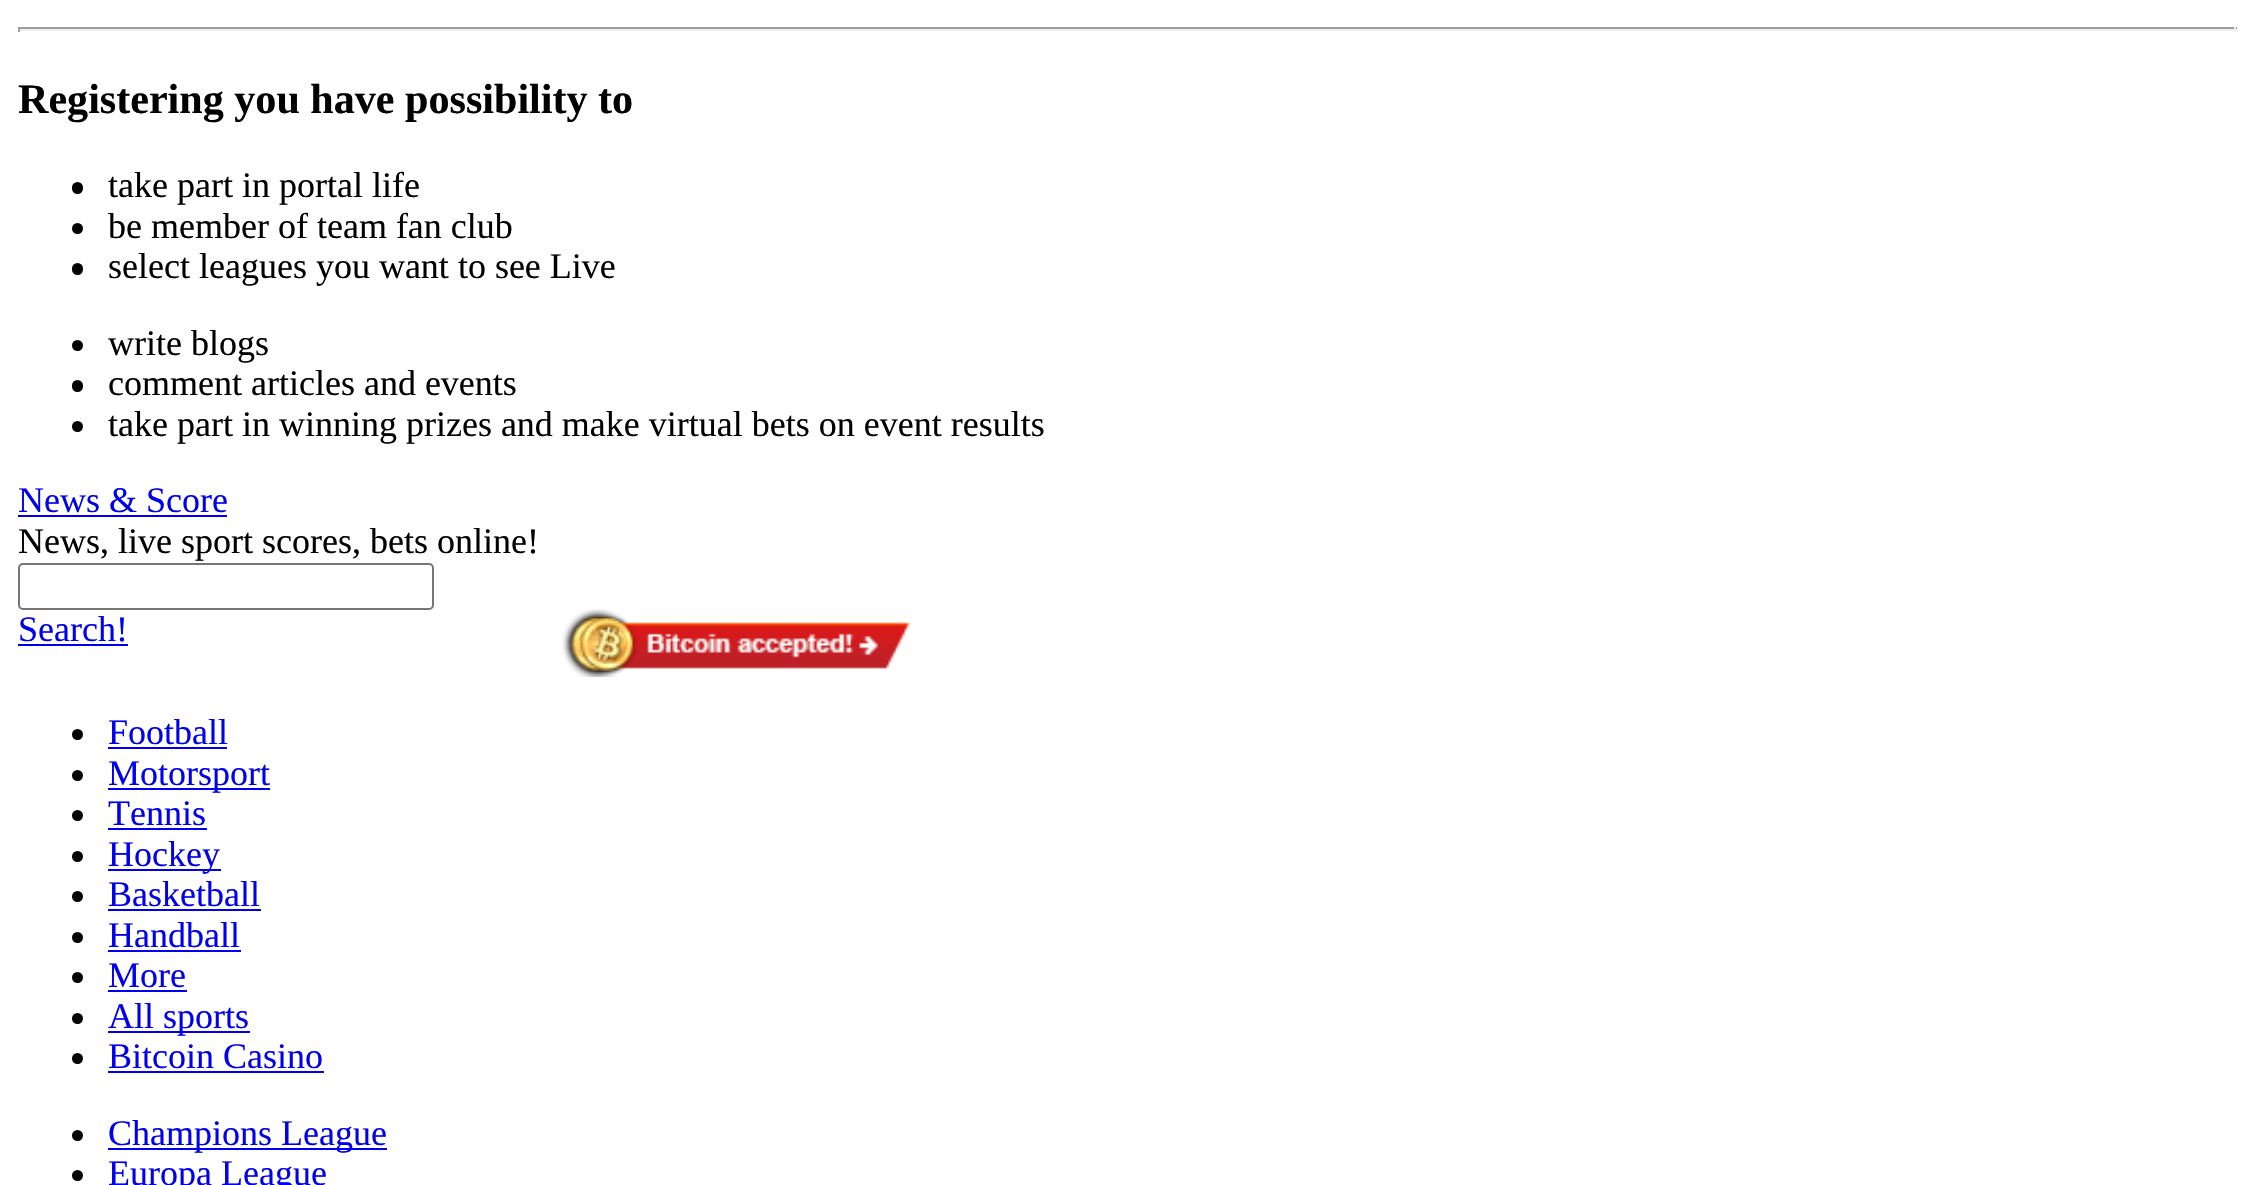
void draw(SkCanvas* canvas) {
    SkPaint paint;
    paint.setAntiAlias(true);
    auto face = [&](const char* family, int weight, float size, bool italic = false) {
        SkFontStyle style(weight, SkFontStyle::kNormal_Width,
            italic ? SkFontStyle::kItalic_Slant : SkFontStyle::kUpright_Slant);
        SkFont result(fontMgr->matchFamilyStyle(family, style), size);
        result.setSubpixel(true);
        return result;
    };
    auto write = [&](const char* s, float x, float y, const SkFont& font, SkColor color) {
        SkPaint ink(SkColor4f::FromColor(color));
        ink.setAntiAlias(true);
        canvas->drawString(s, x, y, font, ink);
    };
    auto block = [&](float x, float y, float w, float h, SkColor color) {
        SkPaint ink(SkColor4f::FromColor(color));
        ink.setAntiAlias(true);
        canvas->drawRect(SkRect::MakeXYWH(x, y, w, h), ink);
    };
    auto card = [&](float x, float y, float w, float h, float radius, SkColor color) {
        SkPaint ink(SkColor4f::FromColor(color));
        ink.setAntiAlias(true);
        canvas->drawRoundRect(SkRect::MakeXYWH(x, y, w, h), radius, radius, ink);
    };
    auto paste = [&](const char* path, float x, float y, float w, float h) {
        auto image = SkImages::DeferredFromEncodedData(SkData::MakeFromFileName(path));
        canvas->drawImageRect(image, SkRect::MakeXYWH(x, y, w, h), SkSamplingOptions());
    };
    canvas->clear(SK_ColorWHITE);
    block(18, 27, 2219, 2, SkColorSetRGB(159, 159, 159));
    block(2234, 27, 2, 5, SkColorSetRGB(238, 238, 238));
    block(18, 29, 2219, 2, SkColorSetRGB(238, 238, 238));
    block(18, 27, 2, 5, SkColorSetRGB(159, 159, 159));
    auto kFont1 = face("Liberation Serif", 700, 42.1f);
    write("Registering you have possibility to", 18, 113, kFont1, SK_ColorBLACK);
    card(72, 182, 11, 12, 5.5f, SK_ColorBLACK);
    auto kFont2 = face("Liberation Serif", 400, 36);
    write("take part in portal life", 108, 197, kFont2, SK_ColorBLACK);
    paint.setColor(SK_ColorBLACK);
    canvas->drawCircle(77.5f, 228.5f, 5.5f, paint);
    write("be member of team fan club", 108, 238, kFont2, SK_ColorBLACK);
    card(72, 263, 11, 12, 5.5f, SK_ColorBLACK);
    write("select leagues you want to see Live", 108, 278, kFont2, SK_ColorBLACK);
    canvas->drawCircle(77.5f, 345.5f, 5.5f, paint);
    write("write blogs", 108, 355, kFont2, SK_ColorBLACK);
    card(72, 380, 11, 12, 5.5f, SK_ColorBLACK);
    write("comment articles and events", 108, 395, kFont2, SK_ColorBLACK);
    canvas->drawCircle(77.5f, 426.5f, 5.5f, paint);
    write("take part in winning prizes and make virtual bets on event results", 108, 436, kFont2, SK_ColorBLACK);
    write("News & Score", 18, 512, kFont2, SkColorSetRGB(0, 0, 238));
    block(18, 515, 209, 2, SkColorSetRGB(0, 0, 238));
    write("News, live sport scores, bets online!", 18, 553, kFont2, SK_ColorBLACK);
    paint.setStyle(SkPaint::kStroke_Style);
    paint.setStrokeWidth(2);
    paint.setColor(SkColorSetRGB(118, 118, 118));
    canvas->drawRoundRect(SkRect::MakeXYWH(19, 564, 414, 45), 4, 4, paint);
    write("Search!", 18, 641, kFont2, SkColorSetRGB(0, 0, 238));
    block(18, 644, 110, 2, SkColorSetRGB(0, 0, 238));
    paste("pic1.png", 562, 609, 348, 68);
    paint.setStyle(SkPaint::kFill_Style);
    paint.setColor(SK_ColorBLACK);
    canvas->drawCircle(77.5f, 734.5f, 5.5f, paint);
    write("Football", 108, 744, kFont2, SkColorSetRGB(0, 0, 238));
    block(108, 747, 119, 2, SkColorSetRGB(0, 0, 238));
    canvas->drawCircle(77.5f, 775.5f, 5.5f, paint);
    block(108, 788, 162, 2, SkColorSetRGB(0, 0, 238));
    write("Motorsport", 108, 785, kFont2, SkColorSetRGB(0, 0, 238));
    canvas->drawCircle(77.5f, 815.5f, 5.5f, paint);
    write("Tennis", 108, 825, kFont2, SkColorSetRGB(0, 0, 238));
    block(108, 828, 99, 2, SkColorSetRGB(0, 0, 238));
    canvas->drawCircle(77.5f, 856.5f, 5.5f, paint);
    block(108, 869, 113, 2, SkColorSetRGB(0, 0, 238));
    write("Hockey", 108, 866, kFont2, SkColorSetRGB(0, 0, 238));
    canvas->drawCircle(77.5f, 896.5f, 5.5f, paint);
    write("Basketball", 108, 906, kFont2, SkColorSetRGB(0, 0, 238));
    block(108, 909, 153, 2, SkColorSetRGB(0, 0, 238));
    canvas->drawCircle(77.5f, 937.5f, 5.5f, paint);
    write("Handball", 108, 947, kFont2, SkColorSetRGB(0, 0, 238));
    block(108, 950, 133, 2, SkColorSetRGB(0, 0, 238));
    canvas->drawCircle(77.5f, 977.5f, 5.5f, paint);
    write("More", 108, 987, kFont2, SkColorSetRGB(0, 0, 238));
    block(108, 990, 79, 2, SkColorSetRGB(0, 0, 238));
    canvas->drawCircle(77.5f, 1018.5f, 5.5f, paint);
    block(108, 1031, 142, 2, SkColorSetRGB(0, 0, 238));
    write("All sports", 108, 1028, kFont2, SkColorSetRGB(0, 0, 238));
    canvas->drawCircle(77.5f, 1058.5f, 5.5f, paint);
    write("Bitcoin Casino", 108, 1068, kFont2, SkColorSetRGB(0, 0, 238));
    block(108, 1071, 216, 2, SkColorSetRGB(0, 0, 238));
    canvas->drawCircle(77.5f, 1135.5f, 5.5f, paint);
    block(108, 1148, 279, 2, SkColorSetRGB(0, 0, 238));
    write("Champions League", 108, 1145, kFont2, SkColorSetRGB(0, 0, 238));
    canvas->drawCircle(77.5f, 1175.5f, 5.5f, paint);
    write("Europa League", 108, 1185, kFont2, SkColorSetRGB(0, 0, 238));
}
